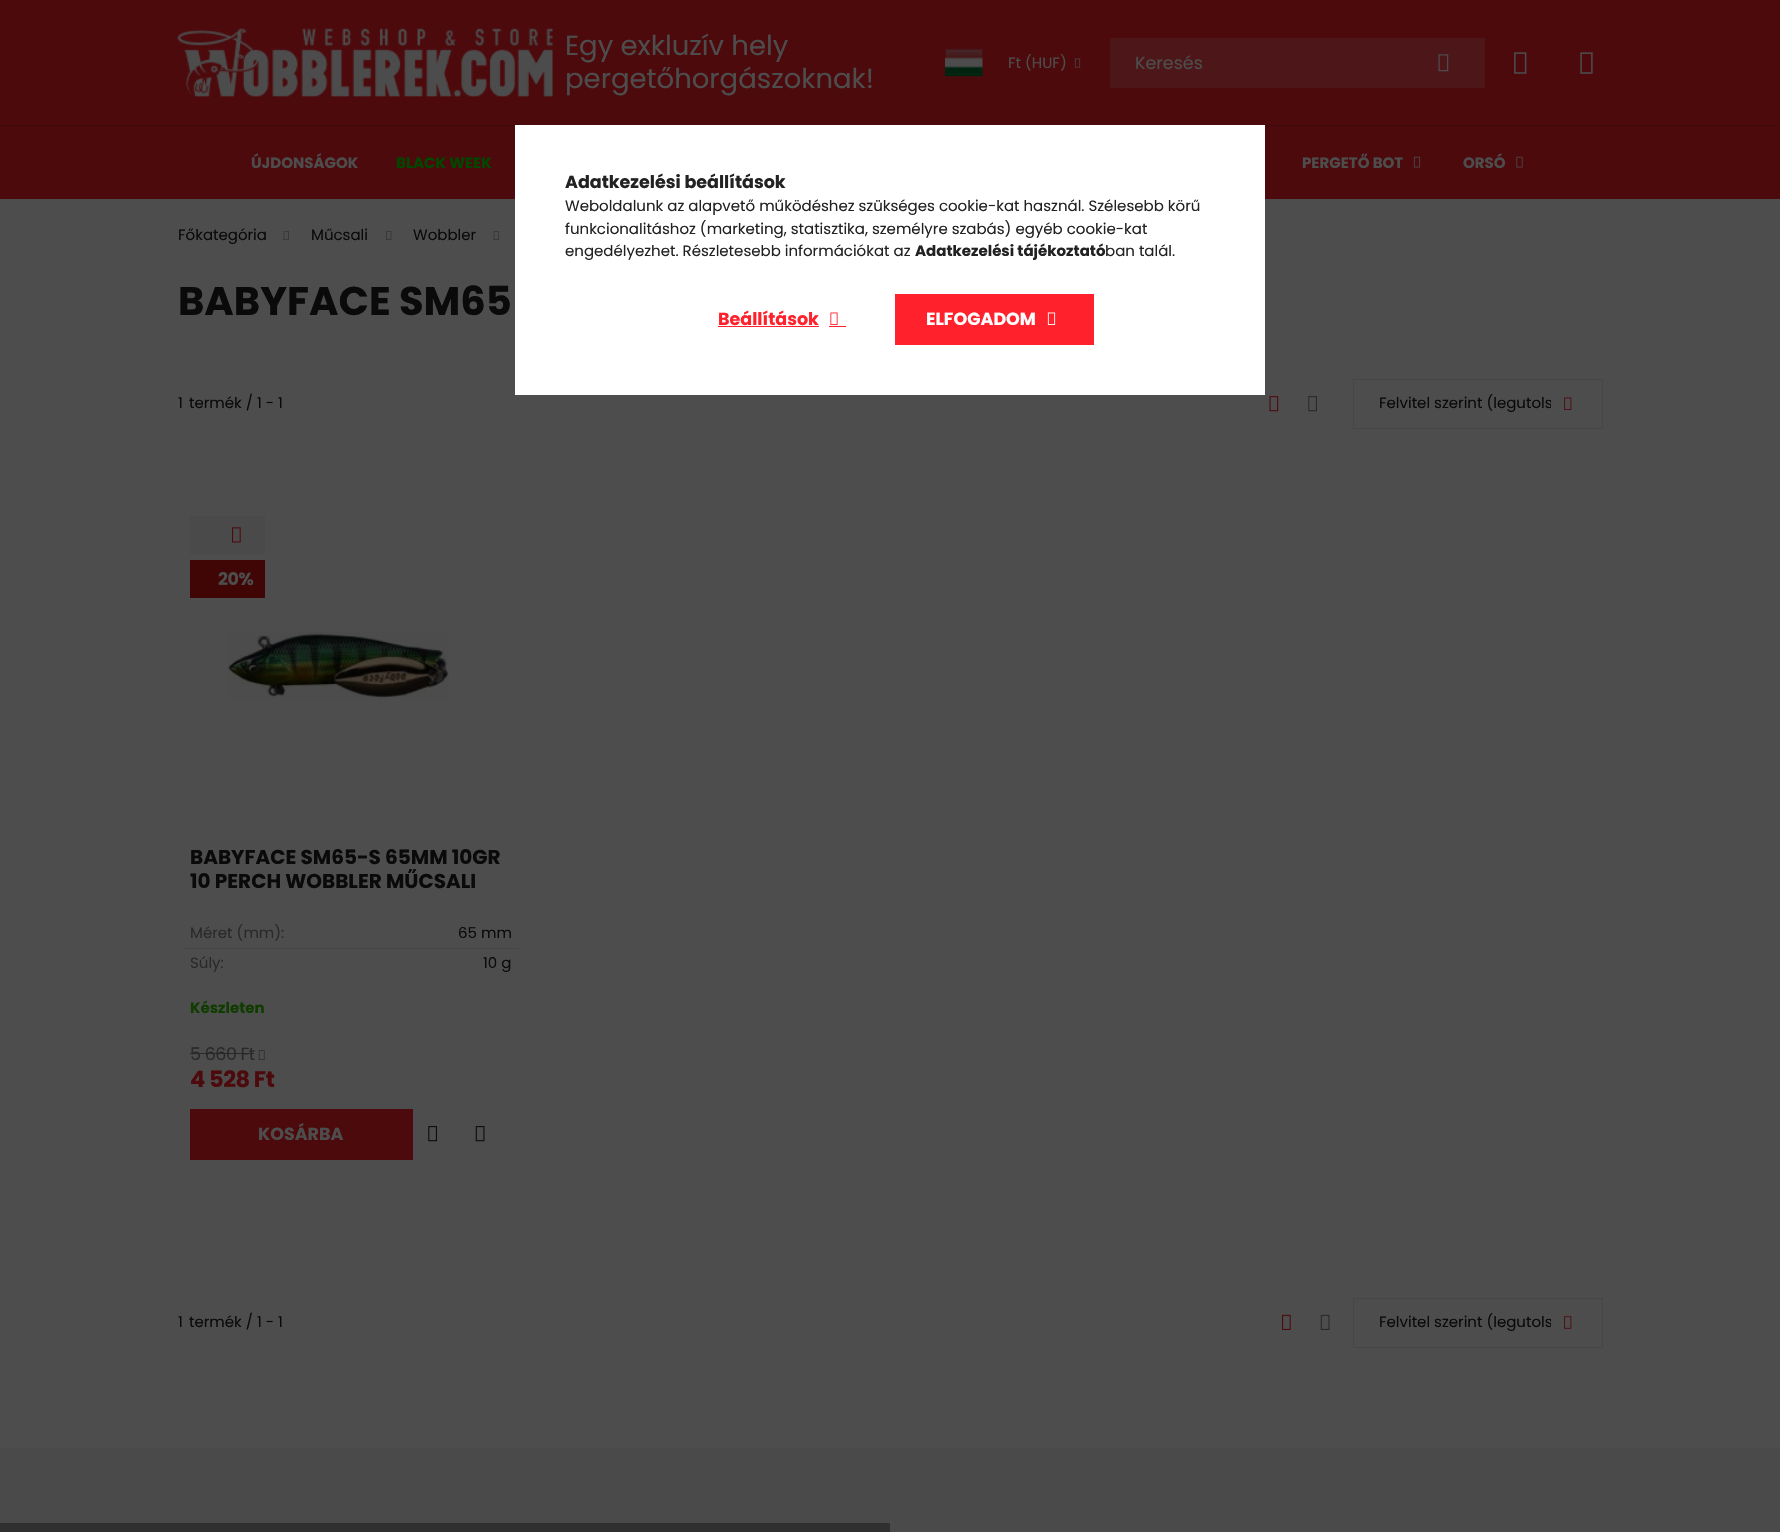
void draw(SkCanvas* canvas) {
    SkPaint paint;
    paint.setAntiAlias(true);
    auto face = [&](const char* family, int weight, float size, bool italic = false) {
        SkFontStyle style(weight, SkFontStyle::kNormal_Width,
            italic ? SkFontStyle::kItalic_Slant : SkFontStyle::kUpright_Slant);
        SkFont result(fontMgr->matchFamilyStyle(family, style), size);
        result.setSubpixel(true);
        return result;
    };
    auto write = [&](const char* s, float x, float y, const SkFont& font, SkColor color) {
        SkPaint ink(SkColor4f::FromColor(color));
        ink.setAntiAlias(true);
        canvas->drawString(s, x, y, font, ink);
    };
    auto writeSpaced = [&](const char* s, float x, float y, const SkFont& font, const SkPaint& ink, float letter, float word) {
        std::vector<SkGlyphID> glyphs(font.countText(s, strlen(s), SkTextEncoding::kUTF8));
        std::vector<float> xs(glyphs.size());
        font.textToGlyphs(s, strlen(s), SkTextEncoding::kUTF8, glyphs);
        font.getXPos(glyphs, xs, x);
        float extra = 0;
        for (size_t i = 0; i < glyphs.size(); i++) {
            xs[i] += extra;
            extra += letter + word * (glyphs[i] == font.unicharToGlyph(' '));
        }
        canvas->drawTextBlob(SkTextBlob::MakeFromPosHGlyphs(glyphs, xs, y, font), 0, 0, ink);
    };
    auto block = [&](float x, float y, float w, float h, SkColor color) {
        SkPaint ink(SkColor4f::FromColor(color));
        ink.setAntiAlias(true);
        canvas->drawRect(SkRect::MakeXYWH(x, y, w, h), ink);
    };
    auto paste = [&](const char* path, float x, float y, float w, float h) {
        auto image = SkImages::DeferredFromEncodedData(SkData::MakeFromFileName(path));
        canvas->drawImageRect(image, SkRect::MakeXYWH(x, y, w, h), SkSamplingOptions());
    };
    canvas->clear(SkColorSetRGB(77, 77, 77));
    block(0, 0, 1780, 125, SkColorSetRGB(77, 10, 13));
    paste("pic1.png", 177, 28, 376, 69);
    auto kFont1 = face("Poppins", 400, 27.5f);
    write("Egy exkluzív hely", 565, 55, kFont1, SkColorSetRGB(77, 77, 77));
    write("pergetőhorgászoknak!", 565, 88, kFont1, SkColorSetRGB(77, 77, 77));
    paste("pic2.png", 945, 48, 38, 29);
    auto kFont2 = face("Poppins", 400, 15);
    write("Ft (HUF)", 1008, 68, kFont2, SkColorSetRGB(77, 77, 77));
    paste("pic3.png", 1074, 58, 7, 10);
    block(1110, 38, 375, 50, SkColorSetRGB(77, 23, 26));
    auto kFont3 = face("Poppins", 400, 17.5f);
    write("Keresés", 1135, 69, kFont3, SkColorSetRGB(77, 77, 77));
    paste("pic4.png", 1438, 54, 11, 18);
    paste("pic5.png", 1514, 52, 13, 22);
    paste("pic6.png", 1580, 52, 13, 22);
    block(0, 126, 1780, 73, SkColorSetRGB(77, 10, 13));
    block(0, 125, 1780, 1, SkColorSetRGB(63, 10, 13));
    auto kFont4 = face("Poppins", 700, 15);
    write("ÚJDONSÁGOK", 251, 168, kFont4, SkColorSetRGB(77, 77, 77));
    write("BLACK WEEK", 396, 168, kFont4, SkColorSetRGB(0, 71, 0));
    write("PERGETŐ BOT", 1302, 168, kFont4, SkColorSetRGB(77, 77, 77));
    paste("pic7.png", 1413, 156, 8, 12);
    write("ORSÓ", 1463, 168, kFont4, SkColorSetRGB(77, 77, 77));
    paste("pic8.png", 1516, 156, 7, 12);
    write("Főkategória", 178, 240, kFont2, SkColorSetRGB(10, 10, 10));
    paste("pic9.png", 283, 231, 6, 9);
    write("Műcsali", 311, 240, kFont2, SkColorSetRGB(10, 10, 10));
    paste("pic10.png", 386, 231, 6, 9);
    write("Wobbler", 413, 240, kFont2, SkColorSetRGB(10, 10, 10));
    paste("pic9.png", 493, 231, 6, 9);
    auto kFont5 = face("Poppins", 700, 40);
    write("BABYFACE SM65", 178, 315, kFont5, SkColorSetRGB(10, 10, 10));
    write("1", 178, 408, kFont2, SkColorSetRGB(10, 10, 10));
    write("termék / 1 - 1", 189, 408, kFont2, SkColorSetRGB(10, 10, 10));
    paste("pic11.png", 1269, 396, 10, 16);
    paste("pic12.png", 1308, 396, 9, 16);
    paint.setStyle(SkPaint::kStroke_Style);
    paint.setStrokeWidth(1);
    paint.setColor(SkColorSetRGB(70, 70, 70));
    canvas->drawRect(SkRect::MakeXYWH(1353.5f, 379.5f, 249, 49), paint);
    canvas->save();
    canvas->clipRect(SkRect::MakeXYWH(1379, 393, 172, 22));
    write("Felvitel szerint (legutols", 1379, 408, kFont2, SkColorSetRGB(10, 10, 10));
    canvas->restore();
    paste("pic13.png", 1564, 397, 8, 13);
    block(190, 516, 75, 38, SkColorSetRGB(74, 74, 74));
    paste("pic14.png", 232, 527, 9, 16);
    block(190, 560, 75, 38, SkColorSetRGB(64, 6, 6));
    auto kFont6 = face("Poppins", 700, 17.5f);
    paint.setStyle(SkPaint::kFill_Style);
    paint.setColor(SkColorSetRGB(77, 77, 77));
    writeSpaced("20%", 218, 585, kFont6, paint, -0.5f, 0);
    paste("pic15.png", 227, 631, 222, 68);
    auto kFont7 = face("Poppins", 700, 20);
    write("BABYFACE SM65-S 65MM 10GR", 190, 864, kFont7, SkColorSetRGB(10, 10, 10));
    write("10 PERCH WOBBLER MŰCSALI", 190, 888, kFont7, SkColorSetRGB(10, 10, 10));
    write("Méret (mm):", 190, 938, kFont2, SkColorSetRGB(41, 41, 41));
    write("65 mm", 458, 938, kFont2, SkColorSetRGB(10, 10, 10));
    block(184, 948, 335, 1, SkColorSetRGB(70, 70, 70));
    write("Súly:", 190, 968, kFont2, SkColorSetRGB(41, 41, 41));
    write("10 g", 483, 968, kFont2, SkColorSetRGB(10, 10, 10));
    write("Készleten", 190, 1013, kFont4, SkColorSetRGB(16, 60, 0));
    paint.setColor(SkColorSetRGB(41, 41, 41));
    writeSpaced("5 660 Ft", 190, 1060, kFont3, paint, -0.5f, 0);
    block(190, 1053, 64, 1, SkColorSetRGB(41, 41, 41));
    paste("pic16.png", 258, 1050, 7, 10);
    auto kFont8 = face("Poppins", 700, 22.5f);
    paint.setColor(SkColorSetRGB(77, 10, 13));
    writeSpaced("4 528 Ft", 190, 1087, kFont8, paint, -0.5f, 0);
    block(190, 1109, 223, 51, SkColorSetRGB(77, 10, 13));
    write("KOSÁRBA", 258, 1140, kFont6, SkColorSetRGB(77, 77, 77));
    paste("pic17.png", 428, 1126, 9, 16);
    paste("pic18.png", 475, 1126, 10, 16);
    write("1", 178, 1327, kFont2, SkColorSetRGB(10, 10, 10));
    write("termék / 1 - 1", 189, 1327, kFont2, SkColorSetRGB(10, 10, 10));
    paste("pic19.png", 1282, 1314, 9, 16);
    paste("pic20.png", 1320, 1314, 10, 16);
    paint.setStyle(SkPaint::kStroke_Style);
    paint.setColor(SkColorSetRGB(70, 70, 70));
    canvas->drawRect(SkRect::MakeXYWH(1353.5f, 1298.5f, 249, 49), paint);
    canvas->save();
    canvas->clipRect(SkRect::MakeXYWH(1379, 1311, 172, 23));
    write("Felvitel szerint (legutols", 1379, 1327, kFont2, SkColorSetRGB(10, 10, 10));
    canvas->restore();
    paste("pic21.png", 1564, 1316, 8, 13);
    block(0, 1448, 1780, 84, SkColorSetRGB(74, 74, 74));
    block(0, 1523, 890, 9, SkColorSetRGB(48, 48, 48));
    block(515, 125, 750, 270, SK_ColorWHITE);
    write("Adatkezelési beállítások", 565, 188, kFont6, SkColorSetRGB(34, 34, 34));
    write("Weboldalunk az alapvető működéshez szükséges cookie-kat használ. Szélesebb körű", 565, 211, kFont2, SkColorSetRGB(34, 34, 34));
    write("funkcionalitáshoz (marketing, statisztika, személyre szabás) egyéb cookie-kat", 565, 234, kFont2, SkColorSetRGB(34, 34, 34));
    write("engedélyezhet. Részletesebb információkat az", 565, 256, kFont2, SkColorSetRGB(34, 34, 34));
    write("Adatkezelési tájékoztató", 915, 256, kFont4, SkColorSetRGB(34, 34, 34));
    write("ban talál.", 1105, 256, kFont2, SkColorSetRGB(34, 34, 34));
    write("Beállítások", 718, 325, kFont6, SkColorSetRGB(255, 33, 44));
    block(718, 326, 101, 1, SkColorSetRGB(255, 33, 44));
    paste("pic22.png", 830, 312, 8, 13);
    block(829, 326, 17, 1, SkColorSetRGB(255, 33, 44));
    block(895, 294, 199, 51, SkColorSetRGB(255, 33, 44));
    write("ELFOGADOM", 926, 325, kFont6, SK_ColorWHITE);
    paste("pic23.png", 1047, 312, 9, 13);
}
